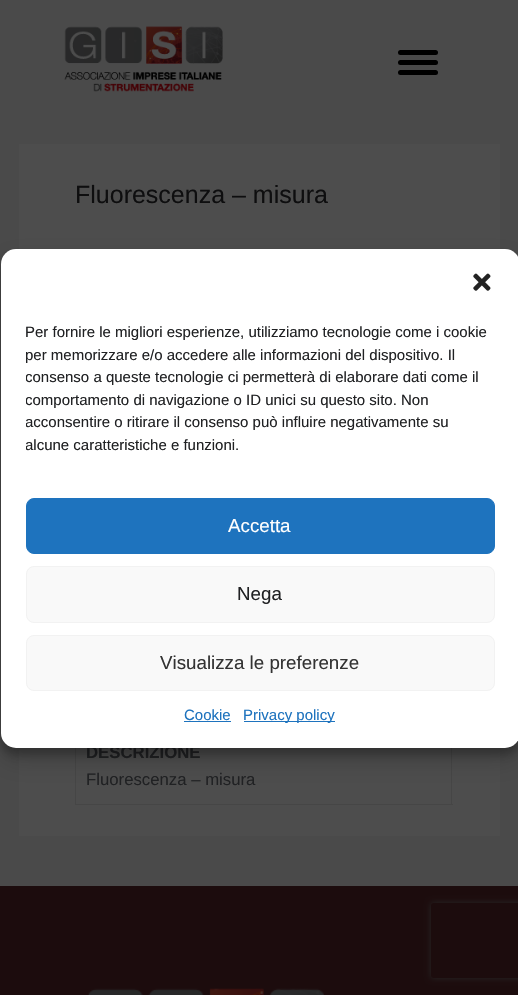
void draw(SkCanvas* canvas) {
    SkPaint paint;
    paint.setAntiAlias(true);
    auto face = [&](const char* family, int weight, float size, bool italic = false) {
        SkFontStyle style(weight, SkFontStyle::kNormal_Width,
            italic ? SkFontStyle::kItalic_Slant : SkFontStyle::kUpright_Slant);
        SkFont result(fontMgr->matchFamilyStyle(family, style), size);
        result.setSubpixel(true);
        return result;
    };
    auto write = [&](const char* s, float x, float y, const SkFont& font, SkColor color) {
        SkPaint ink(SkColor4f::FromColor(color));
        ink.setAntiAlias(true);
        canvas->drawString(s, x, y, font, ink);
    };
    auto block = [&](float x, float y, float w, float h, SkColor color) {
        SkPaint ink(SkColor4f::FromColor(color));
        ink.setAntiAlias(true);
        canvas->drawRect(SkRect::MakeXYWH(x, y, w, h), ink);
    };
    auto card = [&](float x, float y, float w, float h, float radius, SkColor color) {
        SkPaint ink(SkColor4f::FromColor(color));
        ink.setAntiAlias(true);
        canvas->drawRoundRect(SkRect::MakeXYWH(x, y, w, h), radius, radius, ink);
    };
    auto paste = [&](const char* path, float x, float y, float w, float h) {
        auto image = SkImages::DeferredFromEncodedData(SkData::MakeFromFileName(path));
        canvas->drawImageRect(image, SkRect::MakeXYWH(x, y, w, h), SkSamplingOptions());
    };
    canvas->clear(SkColorSetRGB(74, 74, 74));
    paste("pic1.png", 64, 26, 159, 66);
    card(398, 50, 40, 5, 2.5f, SK_ColorBLACK);
    card(398, 60, 40, 5, 2.5f, SK_ColorBLACK);
    card(398, 70, 40, 5, 2.5f, SK_ColorBLACK);
    block(19, 144, 481, 105, SkColorSetRGB(77, 77, 77));
    auto kFont1 = face("Liberation Sans", 400, 25);
    write("Fluorescenza – misura", 75, 203, kFont1, SkColorSetRGB(14, 14, 15));
    block(19, 748, 481, 88, SkColorSetRGB(77, 77, 77));
    block(451, 748, 1, 57, SkColorSetRGB(70, 70, 70));
    block(75, 804, 378, 1, SkColorSetRGB(70, 70, 70));
    block(75, 748, 1, 57, SkColorSetRGB(70, 70, 70));
    auto kFont2 = face("Liberation Sans", 700, 16.75f);
    write("DESCRIZIONE", 86, 758, kFont2, SkColorSetRGB(32, 33, 35));
    auto kFont3 = face("Liberation Sans", 400, 16.75f);
    write("Fluorescenza – misura", 86, 785, kFont3, SkColorSetRGB(32, 33, 35));
    paint.setColor(SkColorSetARGB(59, 0, 0, 0));
    paint.setMaskFilter(SkMaskFilter::MakeBlur(kNormal_SkBlurStyle, 4));
    canvas->drawRoundRect(SkRect::MakeXYWH(1, 256, 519, 499), 15, 15, paint);
    paint.setMaskFilter(nullptr);
    paint.setColor(SkColorSetARGB(48, 0, 0, 0));
    paint.setMaskFilter(SkMaskFilter::MakeBlur(kNormal_SkBlurStyle, 12.5f));
    canvas->drawRoundRect(SkRect::MakeXYWH(1, 261, 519, 499), 15, 15, paint);
    paint.setMaskFilter(nullptr);
    card(1, 249, 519, 499, 15, SK_ColorWHITE);
    paste("pic2.png", 473, 273, 18, 18);
    auto kFont4 = face("Liberation Sans", 400, 15);
    write("Per fornire le migliori esperienze, utilizziamo tecnologie come i cookie", 25, 337, kFont4, SkColorSetRGB(32, 33, 35));
    write("per memorizzare e/o accedere alle informazioni del dispositivo. Il", 25, 360, kFont4, SkColorSetRGB(32, 33, 35));
    canvas->save();
    canvas->clipRect(SkRect::MakeXYWH(26, 321, 469, 142));
    write("consenso a queste tecnologie ci permetterà di elaborare dati come il", 25, 382, kFont4, SkColorSetRGB(32, 33, 35));
    write("comportamento di navigazione o ID unici su questo sito. Non", 25, 405, kFont4, SkColorSetRGB(32, 33, 35));
    write("acconsentire o ritirare il consenso può influire negativamente su", 25, 427, kFont4, SkColorSetRGB(32, 33, 35));
    write("alcune caratteristiche e funzioni.", 25, 450, kFont4, SkColorSetRGB(32, 33, 35));
    canvas->restore();
    paint.setColor(SkColorSetRGB(30, 115, 190));
    canvas->drawRoundRect(SkRect::MakeXYWH(26.5f, 498.5f, 468, 55), 7.5f, 7.5f, paint);
    paint.setStyle(SkPaint::kStroke_Style);
    paint.setStrokeWidth(1);
    canvas->drawRoundRect(SkRect::MakeXYWH(26.5f, 498.5f, 468, 55), 7.5f, 7.5f, paint);
    auto kFont5 = face("Liberation Sans", 400, 18.75f);
    write("Accetta", 228, 532, kFont5, SK_ColorWHITE);
    paint.setStyle(SkPaint::kFill_Style);
    paint.setColor(SkColorSetRGB(249, 249, 249));
    canvas->drawRoundRect(SkRect::MakeXYWH(26.5f, 566.5f, 468, 56), 7.5f, 7.5f, paint);
    paint.setStyle(SkPaint::kStroke_Style);
    paint.setColor(SkColorSetRGB(242, 242, 242));
    canvas->drawRoundRect(SkRect::MakeXYWH(26.5f, 566.5f, 468, 56), 7.5f, 7.5f, paint);
    write("Nega", 237, 600, kFont5, SkColorSetRGB(32, 33, 35));
    paint.setStyle(SkPaint::kFill_Style);
    paint.setColor(SkColorSetRGB(249, 249, 249));
    canvas->drawRoundRect(SkRect::MakeXYWH(26.5f, 635.5f, 468, 55), 7.5f, 7.5f, paint);
    paint.setStyle(SkPaint::kStroke_Style);
    paint.setColor(SkColorSetRGB(242, 242, 242));
    canvas->drawRoundRect(SkRect::MakeXYWH(26.5f, 635.5f, 468, 55), 7.5f, 7.5f, paint);
    write("Visualizza le preferenze", 160, 669, kFont5, SkColorSetRGB(51, 51, 51));
    write("Cookie", 184, 720, kFont4, SkColorSetRGB(30, 115, 190));
    block(184, 721, 47, 1, SkColorSetRGB(30, 115, 190));
    block(244, 721, 91, 1, SkColorSetRGB(30, 115, 190));
    write("Privacy policy", 243, 720, kFont4, SkColorSetRGB(30, 115, 190));
    block(0, 886, 518, 109, SkColorSetRGB(28, 12, 13));
    paste("pic3.png", 88, 988, 236, 7);
    canvas->save();
    canvas->clipPath(SkPathBuilder(SkPathFillType::kEvenOdd).moveTo(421, 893).lineTo(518, 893).lineTo(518, 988).lineTo(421, 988).close().moveTo(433.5f, 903).lineTo(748.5f, 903).cubicTo(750, 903, 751, 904, 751, 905.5f).lineTo(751, 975.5f).cubicTo(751, 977, 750, 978, 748.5f, 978).lineTo(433.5f, 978).cubicTo(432, 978, 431, 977, 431, 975.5f).lineTo(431, 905.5f).cubicTo(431, 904, 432, 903, 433.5f, 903).close().detach(), true);
    paint.setStyle(SkPaint::kFill_Style);
    paint.setColor(SkColorSetRGB(38, 38, 38));
    paint.setMaskFilter(SkMaskFilter::MakeBlur(kNormal_SkBlurStyle, 3));
    canvas->drawRoundRect(SkRect::MakeXYWH(431, 903, 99, 75), 2.5f, 2.5f, paint);
    paint.setMaskFilter(nullptr);
    canvas->restore();
}
